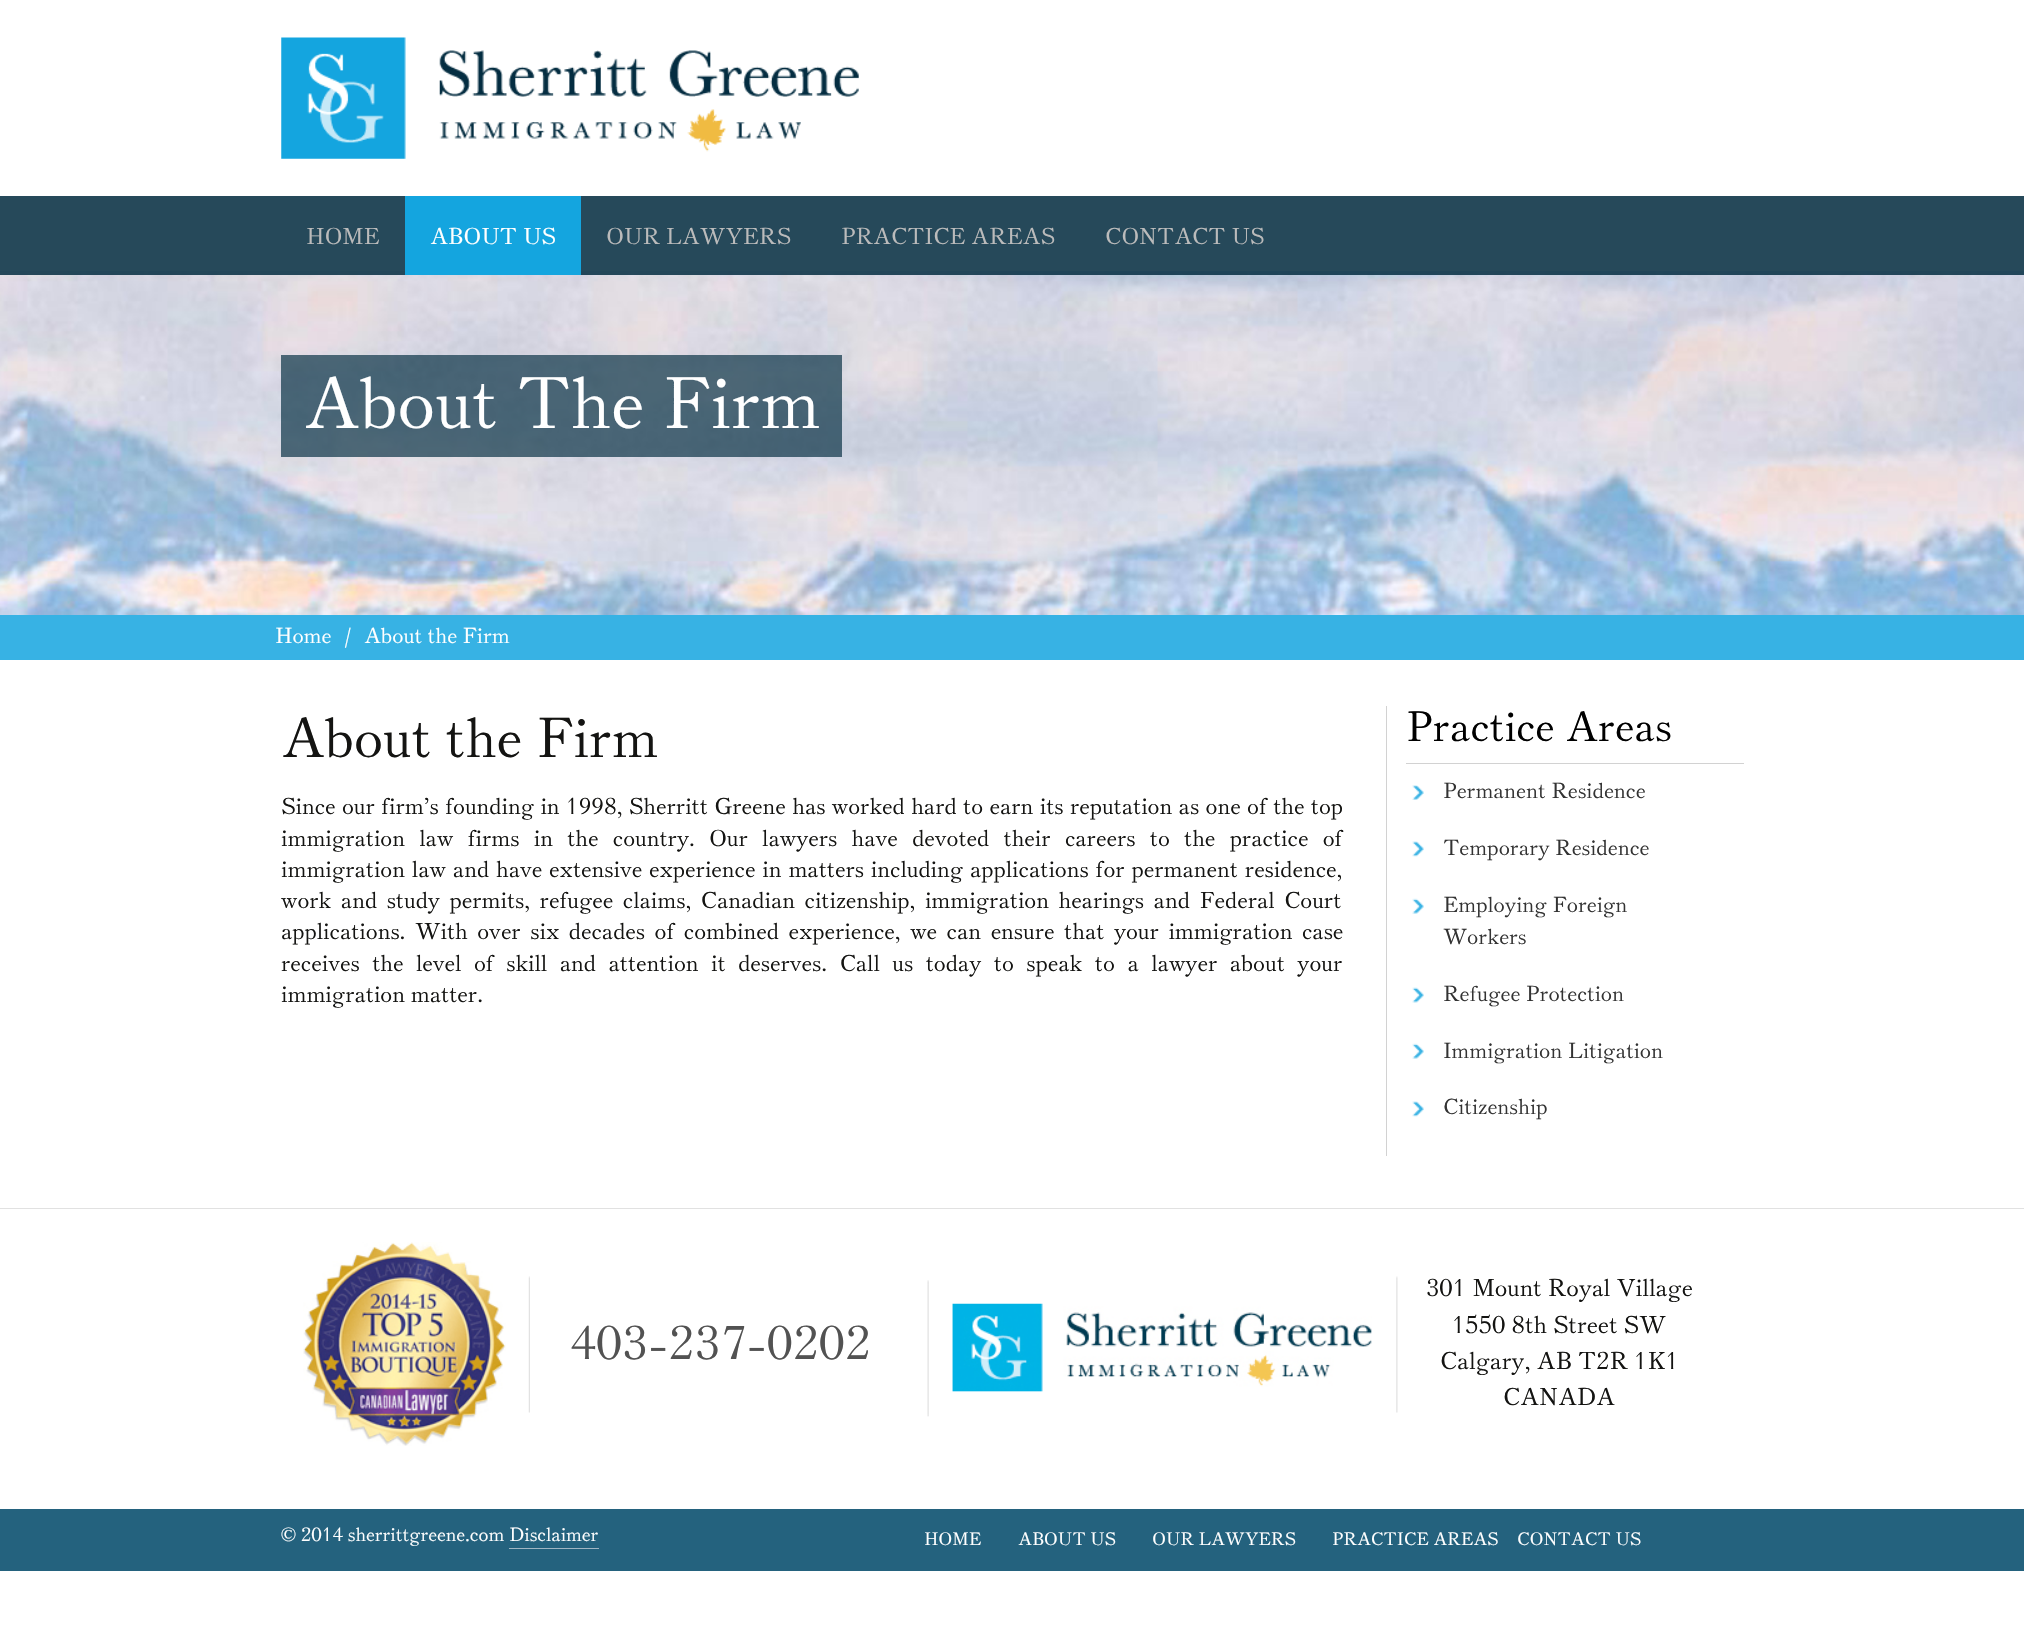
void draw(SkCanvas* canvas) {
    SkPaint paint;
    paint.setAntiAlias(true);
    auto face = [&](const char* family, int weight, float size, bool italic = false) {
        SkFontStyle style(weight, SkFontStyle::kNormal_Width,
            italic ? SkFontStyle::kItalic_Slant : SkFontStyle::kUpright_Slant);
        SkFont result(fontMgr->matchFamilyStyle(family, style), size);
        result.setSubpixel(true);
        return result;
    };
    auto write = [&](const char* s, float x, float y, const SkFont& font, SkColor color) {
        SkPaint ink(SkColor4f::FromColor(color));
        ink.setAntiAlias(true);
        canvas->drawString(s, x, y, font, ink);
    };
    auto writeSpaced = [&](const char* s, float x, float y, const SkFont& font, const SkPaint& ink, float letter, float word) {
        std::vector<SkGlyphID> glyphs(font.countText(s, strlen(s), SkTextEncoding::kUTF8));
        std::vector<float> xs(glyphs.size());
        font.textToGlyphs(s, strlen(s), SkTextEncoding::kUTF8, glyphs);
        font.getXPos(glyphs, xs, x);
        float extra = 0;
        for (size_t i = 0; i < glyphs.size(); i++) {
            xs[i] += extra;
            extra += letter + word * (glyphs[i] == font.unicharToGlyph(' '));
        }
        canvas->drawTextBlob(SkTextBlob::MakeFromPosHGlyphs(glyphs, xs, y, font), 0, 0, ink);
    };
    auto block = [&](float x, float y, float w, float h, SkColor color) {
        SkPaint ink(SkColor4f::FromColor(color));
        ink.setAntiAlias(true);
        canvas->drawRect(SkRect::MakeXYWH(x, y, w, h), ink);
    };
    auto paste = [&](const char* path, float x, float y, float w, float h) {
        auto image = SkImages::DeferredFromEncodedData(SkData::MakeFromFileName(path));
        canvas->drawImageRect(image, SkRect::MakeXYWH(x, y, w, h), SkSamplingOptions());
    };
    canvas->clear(SK_ColorWHITE);
    paste("pic1.png", 281, 37, 578, 122);
    block(0, 196, 2024, 76, SkColorSetRGB(235, 235, 235));
    paste("pic2.png", 0, 271, 2024, 1);
    paste("pic3.png", 0, 271, 2024, 344);
    block(0, 196, 2024, 79, SkColorSetARGB(217, 4, 45, 65));
    auto kFont1 = face("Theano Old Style", 400, 22.5f);
    write("HOME", 306, 244, kFont1, SkColorSetRGB(187, 187, 187));
    block(405, 196, 176, 79, SkColorSetRGB(20, 165, 223));
    write("ABOUT US", 430, 244, kFont1, SK_ColorWHITE);
    write("OUR LAWYERS", 606, 244, kFont1, SkColorSetRGB(187, 187, 187));
    write("PRACTICE AREAS", 841, 244, kFont1, SkColorSetRGB(187, 187, 187));
    write("CONTACT US", 1105, 244, kFont1, SkColorSetRGB(187, 187, 187));
    block(281, 355, 561, 102, SkColorSetARGB(173, 4, 46, 65));
    auto kFont2 = face("Theano Old Style", 400, 71.25f);
    write("About The Firm", 303, 428, kFont2, SK_ColorWHITE);
    block(0, 615, 2024, 45, SkColorSetRGB(55, 178, 228));
    auto kFont3 = face("Theano Old Style", 400, 21.25f);
    write("Home", 275, 643, kFont3, SK_ColorWHITE);
    write("/", 344, 643, kFont3, SK_ColorWHITE);
    write("About the Firm", 364, 643, kFont3, SK_ColorWHITE);
    block(1386, 706, 1, 450, SkColorSetRGB(210, 210, 210));
    auto kFont4 = face("Theano Old Style", 400, 55);
    write("About the Firm", 281, 757, kFont4, SkColorSetRGB(20, 20, 18));
    paint.setColor(SkColorSetRGB(20, 20, 18));
    writeSpaced("Since our firm’s founding in 1998, Sherritt Greene has worked hard to earn its reputation as one of the top", 281, 814, kFont1, paint, 0, 0.6f);
    writeSpaced("immigration law firms in the country. Our lawyers have devoted their careers to the practice of", 281, 846, kFont1, paint, 0, 8.5f);
    writeSpaced("immigration law and have extensive experience in matters including applications for permanent residence,", 281, 877, kFont1, paint, 0, 1.1f);
    writeSpaced("work and study permits, refugee claims, Canadian citizenship, immigration hearings and Federal Court", 281, 908, kFont1, paint, 0, 3.75f);
    writeSpaced("applications. With over six decades of combined experience, we can ensure that your immigration case", 281, 939, kFont1, paint, 0, 3.75f);
    writeSpaced("receives the level of skill and attention it deserves. Call us today to speak to a lawyer about your", 281, 971, kFont1, paint, 0, 6.75f);
    write("immigration matter.", 281, 1002, kFont1, SkColorSetRGB(20, 20, 18));
    block(1406, 763, 338, 1, SkColorSetRGB(210, 210, 210));
    auto kFont5 = face("Theano Old Style", 400, 41.25f);
    write("Practice Areas", 1406, 741, kFont5, SK_ColorBLACK);
    paste("pic4.png", 1412, 785, 12, 15);
    write("Permanent Residence", 1443, 798, kFont3, SkColorSetRGB(51, 51, 51));
    paste("pic5.png", 1412, 841, 12, 16);
    write("Temporary Residence", 1443, 855, kFont3, SkColorSetRGB(51, 51, 51));
    paste("pic6.png", 1412, 898, 12, 16);
    write("Employing Foreign", 1443, 912, kFont3, SkColorSetRGB(51, 51, 51));
    write("Workers", 1443, 944, kFont3, SkColorSetRGB(51, 51, 51));
    paste("pic7.png", 1412, 987, 12, 16);
    write("Refugee Protection", 1443, 1001, kFont3, SkColorSetRGB(51, 51, 51));
    paste("pic6.png", 1412, 1043, 12, 16);
    write("Immigration Litigation", 1443, 1058, kFont3, SkColorSetRGB(51, 51, 51));
    paste("pic5.png", 1412, 1101, 12, 16);
    write("Citizenship", 1443, 1114, kFont3, SkColorSetRGB(51, 51, 51));
    block(0, 1208, 2024, 1, SkColorSetRGB(225, 225, 225));
    paste("pic8.png", 528, 1276, 2, 137);
    paste("pic9.png", 303, 1242, 203, 204);
    paste("pic10.png", 927, 1280, 2, 137);
    auto kFont6 = face("Theano Old Style", 400, 46.25f);
    write("403-237-0202", 570, 1359, kFont6, SkColorSetRGB(82, 82, 82));
    paste("pic11.png", 1396, 1276, 2, 137);
    paste("pic12.png", 952, 1303, 420, 89);
    auto kFont7 = face("Theano Old Style", 400, 23.75f);
    write("301 Mount Royal Village", 1426, 1296, kFont7, SkColorSetRGB(20, 20, 18));
    write("1550 8th Street SW", 1452, 1333, kFont7, SkColorSetRGB(20, 20, 18));
    write("Calgary, AB T2R 1K1", 1440, 1369, kFont7, SkColorSetRGB(20, 20, 18));
    write("CANADA", 1503, 1405, kFont7, SkColorSetRGB(20, 20, 18));
    block(0, 1509, 2024, 62, SkColorSetRGB(36, 98, 126));
    auto kFont8 = face("Theano Old Style", 400, 18.75f);
    write("© 2014 sherrittgreene.com Disclaimer", 281, 1541, kFont8, SK_ColorWHITE);
    block(509, 1548, 90, 1, SkColorSetRGB(160, 181, 195));
    auto kFont9 = face("Theano Old Style", 400, 17.5f);
    write("HOME", 924, 1545, kFont9, SK_ColorWHITE);
    write("ABOUT US", 1018, 1545, kFont9, SK_ColorWHITE);
    write("OUR LAWYERS", 1152, 1545, kFont9, SK_ColorWHITE);
    write("PRACTICE AREAS", 1332, 1545, kFont9, SK_ColorWHITE);
    write("CONTACT US", 1517, 1545, kFont9, SK_ColorWHITE);
}
